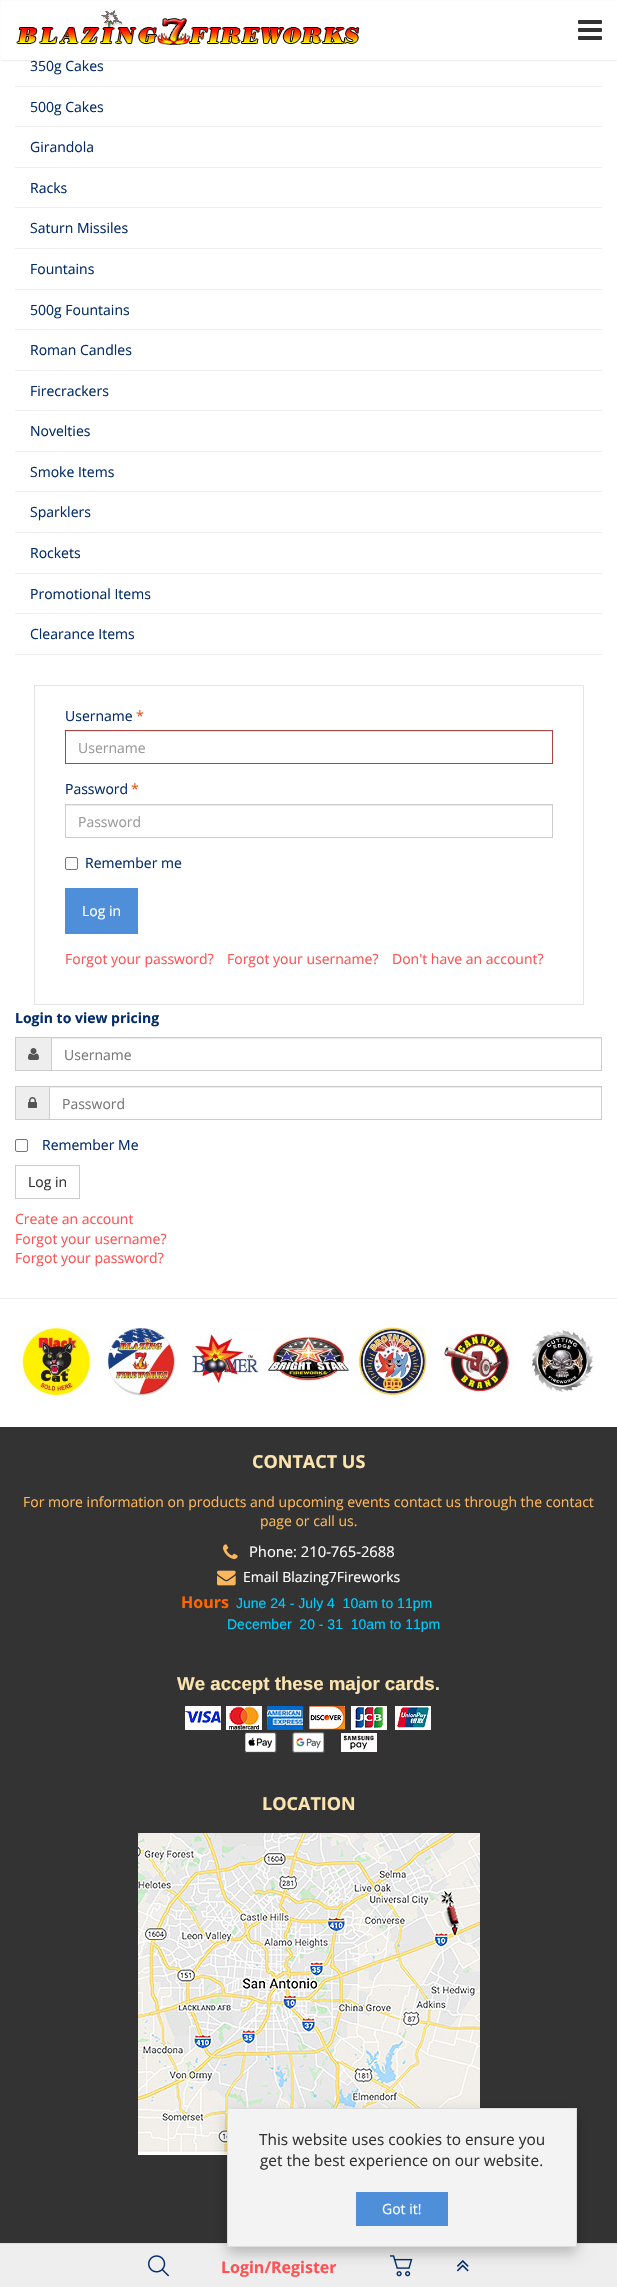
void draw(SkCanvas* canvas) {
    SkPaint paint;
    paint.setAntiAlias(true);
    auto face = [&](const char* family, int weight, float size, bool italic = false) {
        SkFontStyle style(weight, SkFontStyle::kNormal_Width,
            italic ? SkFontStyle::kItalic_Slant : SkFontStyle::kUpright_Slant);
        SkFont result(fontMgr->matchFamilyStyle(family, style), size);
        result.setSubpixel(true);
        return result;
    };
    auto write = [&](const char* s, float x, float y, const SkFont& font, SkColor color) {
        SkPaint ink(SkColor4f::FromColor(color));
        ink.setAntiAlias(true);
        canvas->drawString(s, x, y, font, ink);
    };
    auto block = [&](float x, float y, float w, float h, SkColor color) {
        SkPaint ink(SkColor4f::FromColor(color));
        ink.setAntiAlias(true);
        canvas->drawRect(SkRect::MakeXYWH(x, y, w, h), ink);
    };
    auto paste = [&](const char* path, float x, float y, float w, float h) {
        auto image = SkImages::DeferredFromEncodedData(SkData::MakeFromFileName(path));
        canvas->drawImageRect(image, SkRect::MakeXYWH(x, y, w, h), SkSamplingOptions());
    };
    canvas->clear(SK_ColorWHITE);
    paint.setColor(SkColorSetRGB(239, 239, 239));
    paint.setMaskFilter(SkMaskFilter::MakeBlur(kNormal_SkBlurStyle, 0.5f));
    canvas->drawRect(SkRect::MakeXYWH(1, 1, 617, 60), paint);
    paint.setMaskFilter(nullptr);
    block(1, 1, 616, 59, SK_ColorWHITE);
    paste("pic1.png", 16, 10, 344, 35);
    paste("pic2.png", 578, 20, 24, 20);
    block(15, 86, 587, 1, SkColorSetRGB(238, 238, 238));
    auto kFont1 = face("Open Sans", 400, 14);
    write("350g Cakes", 30, 71, kFont1, SkColorSetRGB(4, 44, 105));
    block(15, 126, 587, 1, SkColorSetRGB(238, 238, 238));
    write("500g Cakes", 30, 112, kFont1, SkColorSetRGB(4, 44, 105));
    block(15, 167, 587, 1, SkColorSetRGB(238, 238, 238));
    write("Girandola", 30, 152, kFont1, SkColorSetRGB(4, 44, 105));
    block(15, 207, 587, 1, SkColorSetRGB(238, 238, 238));
    write("Racks", 30, 193, kFont1, SkColorSetRGB(4, 44, 105));
    block(15, 248, 587, 1, SkColorSetRGB(238, 238, 238));
    write("Saturn Missiles", 30, 233, kFont1, SkColorSetRGB(4, 44, 105));
    block(15, 289, 587, 1, SkColorSetRGB(238, 238, 238));
    write("Fountains", 30, 274, kFont1, SkColorSetRGB(4, 44, 105));
    block(15, 329, 587, 1, SkColorSetRGB(238, 238, 238));
    write("500g Fountains", 30, 315, kFont1, SkColorSetRGB(4, 44, 105));
    block(15, 370, 587, 1, SkColorSetRGB(238, 238, 238));
    write("Roman Candles", 30, 355, kFont1, SkColorSetRGB(4, 44, 105));
    block(15, 410, 587, 1, SkColorSetRGB(238, 238, 238));
    write("Firecrackers", 30, 396, kFont1, SkColorSetRGB(4, 44, 105));
    block(15, 451, 587, 1, SkColorSetRGB(238, 238, 238));
    write("Novelties", 30, 436, kFont1, SkColorSetRGB(4, 44, 105));
    block(15, 491, 587, 1, SkColorSetRGB(238, 238, 238));
    write("Smoke Items", 30, 477, kFont1, SkColorSetRGB(4, 44, 105));
    block(15, 532, 587, 1, SkColorSetRGB(238, 238, 238));
    write("Sparklers", 30, 517, kFont1, SkColorSetRGB(4, 44, 105));
    block(15, 573, 587, 1, SkColorSetRGB(238, 238, 238));
    write("Rockets", 30, 558, kFont1, SkColorSetRGB(4, 44, 105));
    block(15, 613, 587, 1, SkColorSetRGB(238, 238, 238));
    write("Promotional Items", 30, 599, kFont1, SkColorSetRGB(4, 44, 105));
    block(15, 654, 587, 1, SkColorSetRGB(238, 238, 238));
    write("Clearance Items", 30, 639, kFont1, SkColorSetRGB(4, 44, 105));
    paint.setStyle(SkPaint::kStroke_Style);
    paint.setStrokeWidth(1);
    paint.setColor(SkColorSetRGB(229, 229, 229));
    canvas->drawRect(SkRect::MakeXYWH(34.5f, 685.5f, 549, 319), paint);
    write("Username", 65, 721, kFont1, SkColorSetRGB(4, 44, 105));
    write("*", 136, 721, kFont1, SkColorSetRGB(255, 76, 14));
    block(66, 731, 486, 1, SkColorSetRGB(236, 236, 236));
    paint.setColor(SkColorSetRGB(169, 68, 66));
    canvas->drawRect(SkRect::MakeXYWH(65.5f, 730.5f, 487, 33), paint);
    write("Username", 78, 753, kFont1, SkColorSetRGB(153, 153, 153));
    write("Password", 65, 794, kFont1, SkColorSetRGB(4, 44, 105));
    write("*", 131, 794, kFont1, SkColorSetRGB(255, 76, 14));
    block(66, 805, 486, 1, SkColorSetRGB(236, 236, 236));
    paint.setColor(SkColorSetRGB(204, 204, 204));
    canvas->drawRect(SkRect::MakeXYWH(65.5f, 804.5f, 487, 33), paint);
    write("Password", 78, 827, kFont1, SkColorSetRGB(153, 153, 153));
    paint.setColor(SkColorSetRGB(118, 118, 118));
    canvas->drawRoundRect(SkRect::MakeXYWH(65.5f, 857.5f, 12, 12), 1.5f, 1.5f, paint);
    write("Remember me", 85, 868, kFont1, SkColorSetRGB(4, 44, 105));
    block(65, 888, 73, 46, SkColorSetRGB(79, 143, 217));
    write("Log in", 82, 916, kFont1, SK_ColorWHITE);
    write("Forgot your password?", 65, 964, kFont1, SkColorSetRGB(254, 82, 82));
    write("Forgot your username?", 227, 964, kFont1, SkColorSetRGB(254, 82, 82));
    write("Don't have an account?", 392, 964, kFont1, SkColorSetRGB(254, 82, 82));
    auto kFont2 = face("Open Sans", 700, 14);
    write("Login to view pricing", 15, 1023, kFont2, SkColorSetRGB(4, 44, 105));
    block(16, 1038, 35, 32, SkColorSetRGB(238, 238, 238));
    block(15, 1037, 36, 1, SkColorSetRGB(204, 204, 204));
    block(15, 1070, 36, 1, SkColorSetRGB(204, 204, 204));
    block(15, 1037, 1, 34, SkColorSetRGB(204, 204, 204));
    paste("pic3.png", 28, 1048, 11, 12);
    block(52, 1038, 549, 1, SkColorSetRGB(236, 236, 236));
    paint.setColor(SkColorSetRGB(204, 204, 204));
    canvas->drawRect(SkRect::MakeXYWH(51.5f, 1037.5f, 550, 33), paint);
    write("Username", 64, 1060, kFont1, SkColorSetRGB(119, 119, 119));
    block(16, 1087, 33, 32, SkColorSetRGB(238, 238, 238));
    block(15, 1086, 34, 1, SkColorSetRGB(204, 204, 204));
    block(15, 1119, 34, 1, SkColorSetRGB(204, 204, 204));
    block(15, 1086, 1, 34, SkColorSetRGB(204, 204, 204));
    paste("pic4.png", 28, 1097, 9, 11);
    block(50, 1087, 551, 1, SkColorSetRGB(236, 236, 236));
    canvas->drawRect(SkRect::MakeXYWH(49.5f, 1086.5f, 552, 33), paint);
    write("Password", 62, 1109, kFont1, SkColorSetRGB(119, 119, 119));
    paint.setColor(SkColorSetRGB(118, 118, 118));
    canvas->drawRoundRect(SkRect::MakeXYWH(15.5f, 1139.5f, 12, 12), 1.5f, 1.5f, paint);
    write("Remember Me", 42, 1150, kFont1, SkColorSetRGB(4, 44, 105));
    paint.setColor(SkColorSetRGB(204, 204, 204));
    canvas->drawRect(SkRect::MakeXYWH(15.5f, 1165.5f, 64, 33), paint);
    write("Log in", 28, 1187, kFont1, SkColorSetRGB(51, 51, 51));
    write("Create an account", 15, 1224, kFont1, SkColorSetRGB(254, 82, 82));
    write("Forgot your username?", 15, 1244, kFont1, SkColorSetRGB(254, 82, 82));
    write("Forgot your password?", 15, 1263, kFont1, SkColorSetRGB(254, 82, 82));
    block(0, 1298, 617, 1, SkColorSetRGB(238, 238, 238));
    paste("pic5.png", 15, 1327, 81, 73);
    paste("pic6.png", 107, 1327, 73, 73);
    paste("pic7.png", 191, 1328, 73, 56);
    paste("pic8.png", 267, 1336, 83, 46);
    paste("pic9.png", 351, 1319, 81, 81);
    paste("pic10.png", 444, 1328, 72, 70);
    paste("pic11.png", 531, 1329, 63, 63);
    block(0, 1427, 617, 816, SkColorSetRGB(51, 51, 51));
    auto kFont3 = face("Open Sans", 700, 18);
    write("CONTACT US", 252, 1468, kFont3, SkColorSetRGB(251, 228, 176));
    write("For more information on products and upcoming events contact us through the contact", 23, 1507, kFont1, SkColorSetRGB(252, 182, 91));
    write("page or call us.", 260, 1526, kFont1, SkColorSetRGB(252, 182, 91));
    paste("pic12.png", 223, 1544, 15, 15);
    auto kFont4 = face("Open Sans", 400, 14.75f);
    write("Phone: 210-765-2688", 249, 1557, kFont4, SK_ColorWHITE);
    paste("pic13.png", 217, 1570, 19, 16);
    write("Email Blazing7Fireworks", 243, 1582, kFont1, SK_ColorWHITE);
    auto kFont5 = face("Open Sans", 700, 16);
    write("Hours", 181, 1608, kFont5, SkColorSetRGB(255, 102, 0));
    auto kFont6 = face("Liberation Sans", 400, 14);
    write("June 24 - July 4  10am to 11pm", 236, 1608, kFont6, SkColorSetRGB(0, 204, 255));
    write("December  20 - 31  10am to 11pm", 227, 1629, kFont6, SkColorSetRGB(0, 204, 255));
    auto kFont7 = face("Liberation Sans", 700, 18.7f);
    write("We accept these major cards.", 177, 1690, kFont7, SkColorSetRGB(251, 228, 176));
    paste("pic14.png", 185, 1706, 246, 47);
    write("LOCATION", 262, 1810, kFont3, SkColorSetRGB(251, 228, 176));
    paste("pic15.png", 138, 1833, 342, 322);
    block(0, 2244, 617, 43, SkColorSetRGB(238, 238, 238));
    block(0, 2243, 617, 1, SkColorSetRGB(221, 221, 221));
    paste("pic17.png", 390, 2255, 23, 22);
    paste("pic18.png", 456, 2260, 13, 12);
    paint.setStyle(SkPaint::kFill_Style);
    paint.setColor(SkColorSetARGB(59, 0, 0, 0));
    paint.setMaskFilter(SkMaskFilter::MakeBlur(kNormal_SkBlurStyle, 6.5f));
    canvas->drawRect(SkRect::MakeXYWH(227, 2114, 350, 139), paint);
    paint.setMaskFilter(nullptr);
    paint.setColor(SkColorSetRGB(243, 243, 243));
    canvas->drawRect(SkRect::MakeXYWH(227.5f, 2108.5f, 349, 138), paint);
    paint.setStyle(SkPaint::kStroke_Style);
    paint.setColor(SkColorSetRGB(221, 221, 221));
    canvas->drawRect(SkRect::MakeXYWH(227.5f, 2108.5f, 349, 138), paint);
    auto kFont8 = face("Open Sans", 400, 15.4f);
    write("This website uses cookies to ensure you", 259, 2145, kFont8, SkColorSetRGB(51, 51, 51));
    write("get the best experience on our website.", 260, 2166, kFont8, SkColorSetRGB(51, 51, 51));
    block(356, 2192, 92, 34, SkColorSetRGB(79, 143, 217));
    write("Got it!", 382, 2214, kFont1, SK_ColorWHITE);
    paste("pic16.png", 148, 2255, 21, 22);
    write("Login/Register", 221, 2273, kFont5, SkColorSetRGB(254, 82, 82));
}
